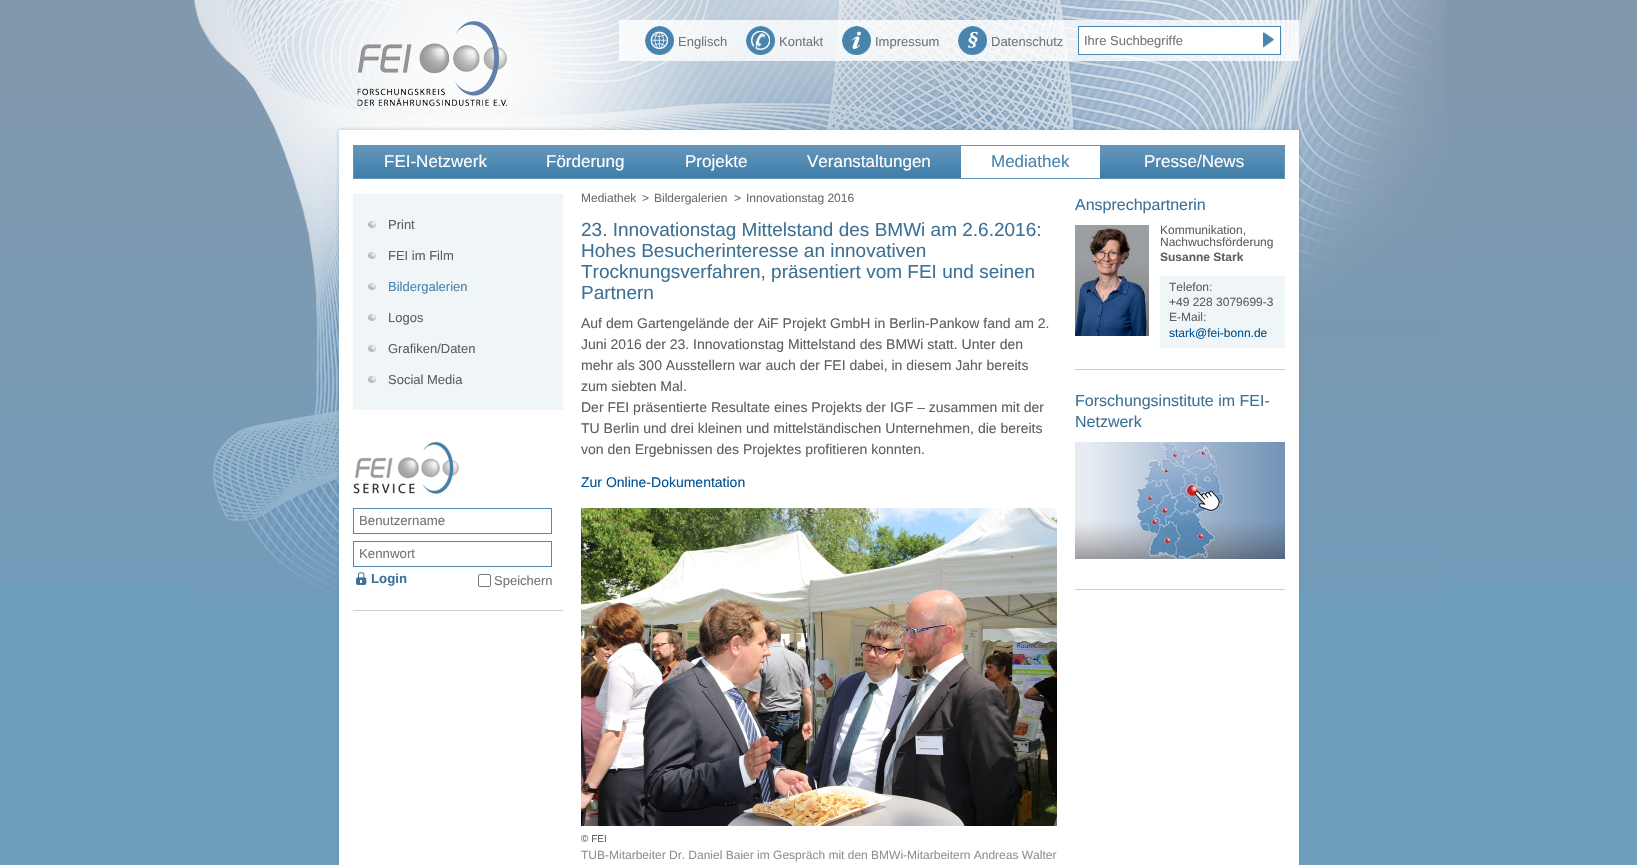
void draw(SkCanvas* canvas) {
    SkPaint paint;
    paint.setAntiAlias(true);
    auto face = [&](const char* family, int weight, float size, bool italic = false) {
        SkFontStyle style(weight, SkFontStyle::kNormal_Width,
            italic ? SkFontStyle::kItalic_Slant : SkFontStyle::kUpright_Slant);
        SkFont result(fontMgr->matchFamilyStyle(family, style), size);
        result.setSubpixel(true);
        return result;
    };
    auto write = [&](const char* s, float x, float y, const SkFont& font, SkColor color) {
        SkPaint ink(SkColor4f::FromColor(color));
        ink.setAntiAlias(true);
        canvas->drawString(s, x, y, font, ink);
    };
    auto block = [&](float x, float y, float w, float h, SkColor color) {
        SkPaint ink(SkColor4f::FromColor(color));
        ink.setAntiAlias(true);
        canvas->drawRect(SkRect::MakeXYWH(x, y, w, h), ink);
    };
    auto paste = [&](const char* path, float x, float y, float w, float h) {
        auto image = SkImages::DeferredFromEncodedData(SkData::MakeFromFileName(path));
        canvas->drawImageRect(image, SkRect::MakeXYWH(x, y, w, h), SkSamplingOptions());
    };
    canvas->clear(SkColorSetRGB(111, 158, 189));
    paste("pic1.png", 0, 0, 1637, 584);
    paste("pic2.png", 194, 0, 1251, 594);
    paste("pic3.png", 357, 21, 150, 85);
    block(619, 20, 680, 41, SkColorSetARGB(204, 255, 255, 255));
    paste("pic4.png", 645, 26, 29, 29);
    auto kFont1 = face("Liberation Sans", 400, 13);
    write("Englisch", 678, 46, kFont1, SkColorSetRGB(115, 117, 118));
    paste("pic5.png", 746, 26, 29, 29);
    write("Kontakt", 779, 46, kFont1, SkColorSetRGB(115, 117, 118));
    paste("pic6.png", 842, 26, 29, 29);
    write("Impressum", 875, 46, kFont1, SkColorSetRGB(115, 117, 118));
    paste("pic7.png", 958, 26, 29, 29);
    write("Datenschutz", 991, 46, kFont1, SkColorSetRGB(115, 117, 118));
    block(1079, 27, 201, 27, SK_ColorWHITE);
    block(1078, 26, 203, 1, SkColorSetRGB(72, 132, 174));
    block(1078, 54, 182, 1, SkColorSetRGB(72, 132, 174));
    block(1078, 26, 1, 29, SkColorSetRGB(72, 132, 174));
    write("Ihre Suchbegriffe", 1084, 45, kFont1, SkColorSetRGB(115, 117, 118));
    paste("pic8.png", 1263, 32, 12, 16);
    block(1280, 26, 1, 29, SkColorSetRGB(72, 132, 174));
    block(1260, 54, 21, 1, SkColorSetRGB(72, 132, 174));
    paste("pic9.png", 337, 127, 964, 3);
    paste("pic10.png", 336, 130, 966, 735);
    paste("pic11.png", 354, 146, 930, 32);
    paint.setStyle(SkPaint::kStroke_Style);
    paint.setStrokeWidth(1);
    paint.setColor(SkColorSetRGB(98, 148, 185));
    canvas->drawRect(SkRect::MakeXYWH(353.5f, 145.5f, 931, 33), paint);
    auto kFont2 = face("Liberation Sans", 400, 17);
    write("FEI-Netzwerk", 384, 167, kFont2, SK_ColorWHITE);
    write("Förderung", 546, 167, kFont2, SK_ColorWHITE);
    write("Projekte", 685, 167, kFont2, SK_ColorWHITE);
    write("Veranstaltungen", 807, 167, kFont2, SK_ColorWHITE);
    block(961, 146, 139, 32, SK_ColorWHITE);
    write("Mediathek", 991, 167, kFont2, SkColorSetRGB(72, 132, 174));
    write("Presse/News", 1144, 167, kFont2, SK_ColorWHITE);
    block(353, 194, 210, 216, SkColorSetRGB(240, 245, 248));
    paste("pic12.png", 368, 221, 8, 7);
    write("Print", 388, 229, kFont1, SkColorSetRGB(95, 95, 95));
    paste("pic12.png", 368, 252, 8, 7);
    write("FEI im Film", 388, 260, kFont1, SkColorSetRGB(95, 95, 95));
    paste("pic12.png", 368, 283, 8, 7);
    write("Bildergalerien", 388, 291, kFont1, SkColorSetRGB(72, 132, 174));
    paste("pic12.png", 368, 314, 8, 7);
    write("Logos", 388, 322, kFont1, SkColorSetRGB(95, 95, 95));
    paste("pic12.png", 368, 345, 8, 7);
    write("Grafiken/Daten", 388, 353, kFont1, SkColorSetRGB(95, 95, 95));
    paste("pic12.png", 368, 376, 8, 7);
    write("Social Media", 388, 384, kFont1, SkColorSetRGB(95, 95, 95));
    block(353, 610, 210, 1, SkColorSetRGB(206, 207, 207));
    paste("pic13.png", 353, 441, 106, 53);
    paint.setColor(SkColorSetRGB(87, 135, 173));
    canvas->drawRect(SkRect::MakeXYWH(353.5f, 508.5f, 198, 25), paint);
    auto kFont3 = face("Liberation Sans", 400, 13.25f);
    write("Benutzername", 359, 525, kFont3, SkColorSetRGB(115, 117, 118));
    canvas->drawRect(SkRect::MakeXYWH(353.5f, 541.5f, 198, 25), paint);
    write("Kennwort", 359, 558, kFont3, SkColorSetRGB(115, 117, 118));
    paste("pic14.png", 356, 572, 11, 13);
    auto kFont4 = face("Liberation Sans", 700, 13.25f);
    write("Login", 371, 583, kFont4, SkColorSetRGB(61, 113, 149));
    paint.setColor(SkColorSetRGB(118, 118, 118));
    canvas->drawRoundRect(SkRect::MakeXYWH(478.5f, 574.5f, 12, 12), 1.5f, 1.5f, paint);
    write("Speichern", 494, 585, kFont1, SkColorSetRGB(115, 117, 118));
    auto kFont5 = face("Liberation Sans", 400, 12);
    write("Mediathek", 581, 202, kFont5, SkColorSetRGB(108, 108, 108));
    write(">", 642, 202, kFont5, SkColorSetRGB(108, 108, 108));
    write("Bildergalerien", 654, 202, kFont5, SkColorSetRGB(108, 108, 108));
    write(">", 734, 202, kFont5, SkColorSetRGB(108, 108, 108));
    write("Innovationstag 2016", 746, 202, kFont5, SkColorSetRGB(108, 108, 108));
    auto kFont6 = face("Liberation Sans", 400, 19);
    write("23. Innovationstag Mittelstand des BMWi am 2.6.2016:", 581, 236, kFont6, SkColorSetRGB(61, 113, 149));
    write("Hohes Besucherinteresse an innovativen", 581, 257, kFont6, SkColorSetRGB(61, 113, 149));
    write("Trocknungsverfahren, präsentiert vom FEI und seinen", 581, 278, kFont6, SkColorSetRGB(61, 113, 149));
    write("Partnern", 581, 299, kFont6, SkColorSetRGB(61, 113, 149));
    auto kFont7 = face("Liberation Sans", 400, 14);
    write("Auf dem Gartengelände der AiF Projekt GmbH in Berlin-Pankow fand am 2.", 581, 328, kFont7, SkColorSetRGB(95, 95, 95));
    write("Juni 2016 der 23. Innovationstag Mittelstand des BMWi statt. Unter den", 581, 349, kFont7, SkColorSetRGB(95, 95, 95));
    write("mehr als 300 Ausstellern war auch der FEI dabei, in diesem Jahr bereits", 581, 370, kFont7, SkColorSetRGB(95, 95, 95));
    write("zum siebten Mal.", 581, 391, kFont7, SkColorSetRGB(95, 95, 95));
    write("Der FEI präsentierte Resultate eines Projekts der IGF – zusammen mit der", 581, 412, kFont7, SkColorSetRGB(95, 95, 95));
    write("TU Berlin und drei kleinen und mittelständischen Unternehmen, die bereits", 581, 433, kFont7, SkColorSetRGB(95, 95, 95));
    write("von den Ergebnissen des Projektes profitieren konnten.", 581, 454, kFont7, SkColorSetRGB(95, 95, 95));
    write("Zur Online-Dokumentation", 581, 487, kFont7, SkColorSetRGB(1, 83, 149));
    paste("pic15.png", 581, 508, 476, 318);
    auto kFont8 = face("Liberation Sans", 400, 10);
    write("© FEI", 581, 842, kFont8, SkColorSetRGB(95, 95, 95));
    write("TUB-Mitarbeiter Dr. Daniel Baier im Gespräch mit den BMWi-Mitarbeitern Andreas Walter", 581, 859, kFont5, SkColorSetRGB(145, 145, 145));
    auto kFont9 = face("Liberation Sans", 400, 16);
    write("Ansprechpartnerin", 1075, 210, kFont9, SkColorSetRGB(61, 113, 149));
    block(1075, 369, 210, 1, SkColorSetRGB(206, 207, 207));
    paste("pic16.png", 1075, 225, 74, 111);
    write("Kommunikation,", 1160, 234, kFont5, SkColorSetRGB(95, 95, 95));
    write("Nachwuchsförderung", 1160, 246, kFont5, SkColorSetRGB(95, 95, 95));
    auto kFont10 = face("Liberation Sans", 700, 12);
    write("Susanne Stark", 1160, 261, kFont10, SkColorSetRGB(95, 95, 95));
    block(1160, 276, 125, 72, SkColorSetRGB(240, 245, 248));
    write("Telefon:", 1169, 291, kFont5, SkColorSetRGB(95, 95, 95));
    write("+49 228 3079699-3", 1169, 306, kFont5, SkColorSetRGB(95, 95, 95));
    write("E-Mail:", 1169, 321, kFont5, SkColorSetRGB(95, 95, 95));
    write("stark@fei-bonn.de", 1169, 337, kFont5, SkColorSetRGB(1, 83, 149));
    block(1075, 589, 210, 1, SkColorSetRGB(206, 207, 207));
    write("Forschungsinstitute im FEI-", 1075, 406, kFont9, SkColorSetRGB(61, 113, 149));
    write("Netzwerk", 1075, 427, kFont9, SkColorSetRGB(61, 113, 149));
    paste("pic17.png", 1075, 442, 210, 117);
}
